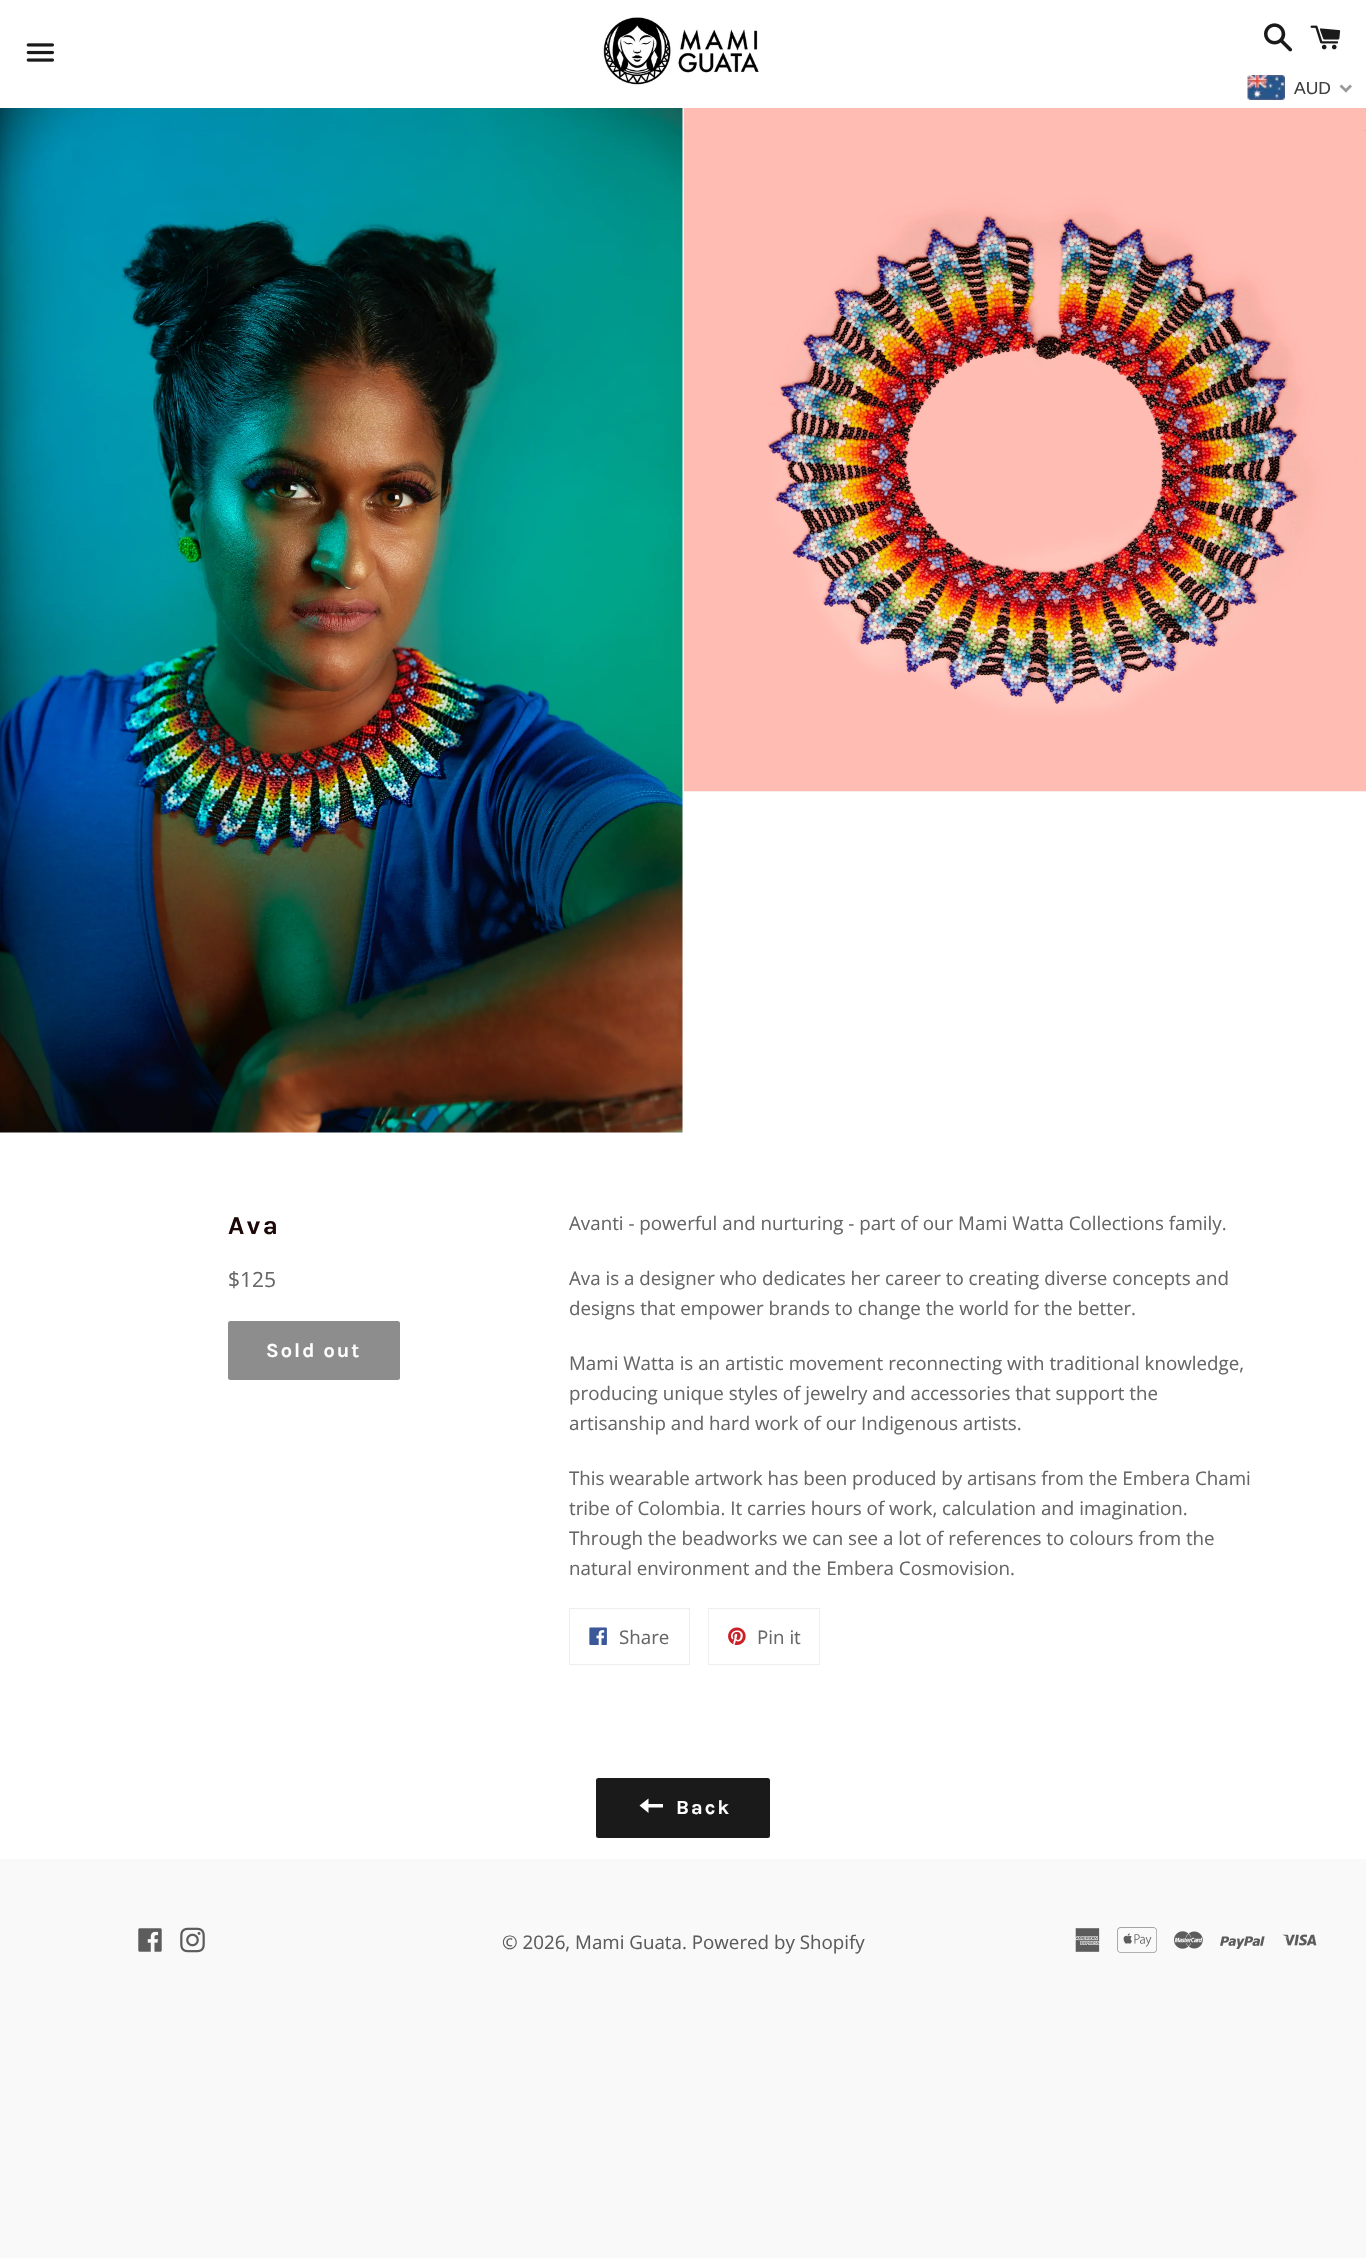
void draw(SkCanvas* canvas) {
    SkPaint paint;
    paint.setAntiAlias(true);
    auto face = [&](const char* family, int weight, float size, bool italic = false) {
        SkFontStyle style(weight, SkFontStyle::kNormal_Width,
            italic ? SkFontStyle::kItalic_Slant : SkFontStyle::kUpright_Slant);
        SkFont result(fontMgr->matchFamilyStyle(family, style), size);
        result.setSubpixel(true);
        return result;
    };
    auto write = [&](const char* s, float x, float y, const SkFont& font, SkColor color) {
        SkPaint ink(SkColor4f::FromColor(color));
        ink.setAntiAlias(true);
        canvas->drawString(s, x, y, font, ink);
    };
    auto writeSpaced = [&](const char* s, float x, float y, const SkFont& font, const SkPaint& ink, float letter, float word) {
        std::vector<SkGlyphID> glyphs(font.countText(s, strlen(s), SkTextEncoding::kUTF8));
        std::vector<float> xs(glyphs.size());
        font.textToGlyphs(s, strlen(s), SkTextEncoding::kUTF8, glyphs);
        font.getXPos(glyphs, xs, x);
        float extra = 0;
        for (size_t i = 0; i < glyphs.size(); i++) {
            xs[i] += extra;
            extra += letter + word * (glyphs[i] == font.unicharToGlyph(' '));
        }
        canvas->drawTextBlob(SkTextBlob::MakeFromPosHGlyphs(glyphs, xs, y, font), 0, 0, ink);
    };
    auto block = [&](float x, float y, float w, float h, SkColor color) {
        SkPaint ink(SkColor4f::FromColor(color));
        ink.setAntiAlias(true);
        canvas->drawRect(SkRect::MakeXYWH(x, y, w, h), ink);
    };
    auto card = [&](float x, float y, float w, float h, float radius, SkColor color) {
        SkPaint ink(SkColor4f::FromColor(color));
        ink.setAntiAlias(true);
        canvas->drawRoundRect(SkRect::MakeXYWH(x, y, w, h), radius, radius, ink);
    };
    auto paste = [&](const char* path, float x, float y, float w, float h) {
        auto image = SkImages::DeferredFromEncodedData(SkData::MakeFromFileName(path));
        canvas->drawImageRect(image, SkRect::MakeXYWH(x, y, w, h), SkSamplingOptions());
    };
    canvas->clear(SkColorSetRGB(249, 249, 249));
    block(0, 0, 1366, 1859, SK_ColorWHITE);
    paste("pic1.png", 26, 43, 28, 19);
    paste("pic2.png", 602, 16, 157, 70);
    paste("pic3.png", 1264, 23, 29, 29);
    paste("pic4.png", 1310, 25, 31, 25);
    paste("pic5.png", 1247, 75, 38, 25);
    auto kFont1 = face("Liberation Sans", 400, 17.5f);
    write("AUD", 1294, 94, kFont1, SkColorSetRGB(64, 63, 63));
    paint.setColor(SkColorSetRGB(153, 153, 153));
    canvas->drawPath(SkPathBuilder().moveTo(1350, 84.5f).lineTo(1352, 86.5f).lineTo(1346, 92.5f).lineTo(1344, 90.5f).close().detach(), paint);
    canvas->drawPath(SkPathBuilder().moveTo(1341.5f, 84.5f).lineTo(1347.5f, 90.5f).lineTo(1346, 92.5f).lineTo(1339.5f, 86.5f).close().detach(), paint);
    paste("pic6.png", 0, 108, 683, 1025);
    paste("pic7.png", 683, 108, 683, 684);
    auto kFont2 = face("Karla", 700, 26);
    paint.setColor(SkColorSetRGB(29, 8, 8));
    writeSpaced("Ava", 228, 1234, kFont2, paint, 2.5f, 0);
    auto kFont3 = face("Open Sans", 400, 21);
    write("$125", 228, 1287, kFont3, SkColorSetRGB(102, 102, 102));
    card(228, 1321, 172, 59, 2.5f, SkColorSetRGB(141, 141, 141));
    auto kFont4 = face("Karla", 700, 20);
    paint.setColor(SK_ColorWHITE);
    writeSpaced("Sold out", 266, 1357, kFont4, paint, 2, 0);
    auto kFont5 = face("Open Sans", 400, 18.75f);
    write("Avanti - powerful and nurturing - part of our Mami Watta Collections family.", 569, 1230, kFont5, SkColorSetRGB(102, 102, 102));
    write("Ava is a designer who dedicates her career to creating diverse concepts and", 569, 1285, kFont5, SkColorSetRGB(102, 102, 102));
    write("designs that empower brands to change the world for the better.", 569, 1315, kFont5, SkColorSetRGB(102, 102, 102));
    write("Mami Watta is an artistic movement reconnecting with traditional knowledge,", 569, 1370, kFont5, SkColorSetRGB(102, 102, 102));
    write("producing unique styles of jewelry and accessories that support the", 569, 1400, kFont5, SkColorSetRGB(102, 102, 102));
    write("artisanship and hard work of our Indigenous artists.", 569, 1430, kFont5, SkColorSetRGB(102, 102, 102));
    write("This wearable artwork has been produced by artisans from the Embera Chami", 569, 1485, kFont5, SkColorSetRGB(102, 102, 102));
    write("tribe of Colombia. It carries hours of work, calculation and imagination.", 569, 1515, kFont5, SkColorSetRGB(102, 102, 102));
    write("Through the beadworks we can see a lot of references to colours from the", 569, 1545, kFont5, SkColorSetRGB(102, 102, 102));
    write("natural environment and the Embera Cosmovision.", 569, 1575, kFont5, SkColorSetRGB(102, 102, 102));
    paint.setStyle(SkPaint::kStroke_Style);
    paint.setStrokeWidth(1);
    paint.setColor(SkColorSetRGB(238, 238, 238));
    canvas->drawRect(SkRect::MakeXYWH(569.5f, 1608.5f, 120, 56), paint);
    paste("pic8.png", 589, 1627, 18, 18);
    write("Share", 619, 1644, kFont5, SkColorSetRGB(102, 102, 102));
    canvas->drawRect(SkRect::MakeXYWH(708.5f, 1608.5f, 111, 56), paint);
    paste("pic9.png", 728, 1627, 18, 18);
    write("Pin it", 757, 1644, kFont5, SkColorSetRGB(102, 102, 102));
    card(596, 1778, 174, 60, 2.5f, SkColorSetRGB(26, 26, 26));
    paint.setStyle(SkPaint::kFill_Style);
    paint.setColor(SK_ColorWHITE);
    canvas->drawPath(SkPathBuilder().moveTo(648.5f, 1804).lineTo(648.5f, 1798.5f).lineTo(639.5f, 1805.5f).lineTo(648.5f, 1813).lineTo(648.5f, 1807.5f).lineTo(663, 1807.5f).lineTo(663, 1804).close().detach(), paint);
    writeSpaced("Back", 676, 1814, kFont4, paint, 2, 0);
    paste("pic10.png", 138, 1928, 24, 24);
    paste("pic11.png", 180, 1927, 25, 26);
    write("© 2026, Mami Guata. Powered by Shopify", 502, 1949, kFont5, SkColorSetRGB(92, 92, 92));
    paste("pic12.png", 1075, 1928, 25, 24);
    paste("pic13.png", 1117, 1927, 40, 26);
    paste("pic14.png", 1174, 1931, 29, 18);
    paste("pic15.png", 1220, 1936, 45, 13);
    paste("pic16.png", 1282, 1934, 35, 12);
}
